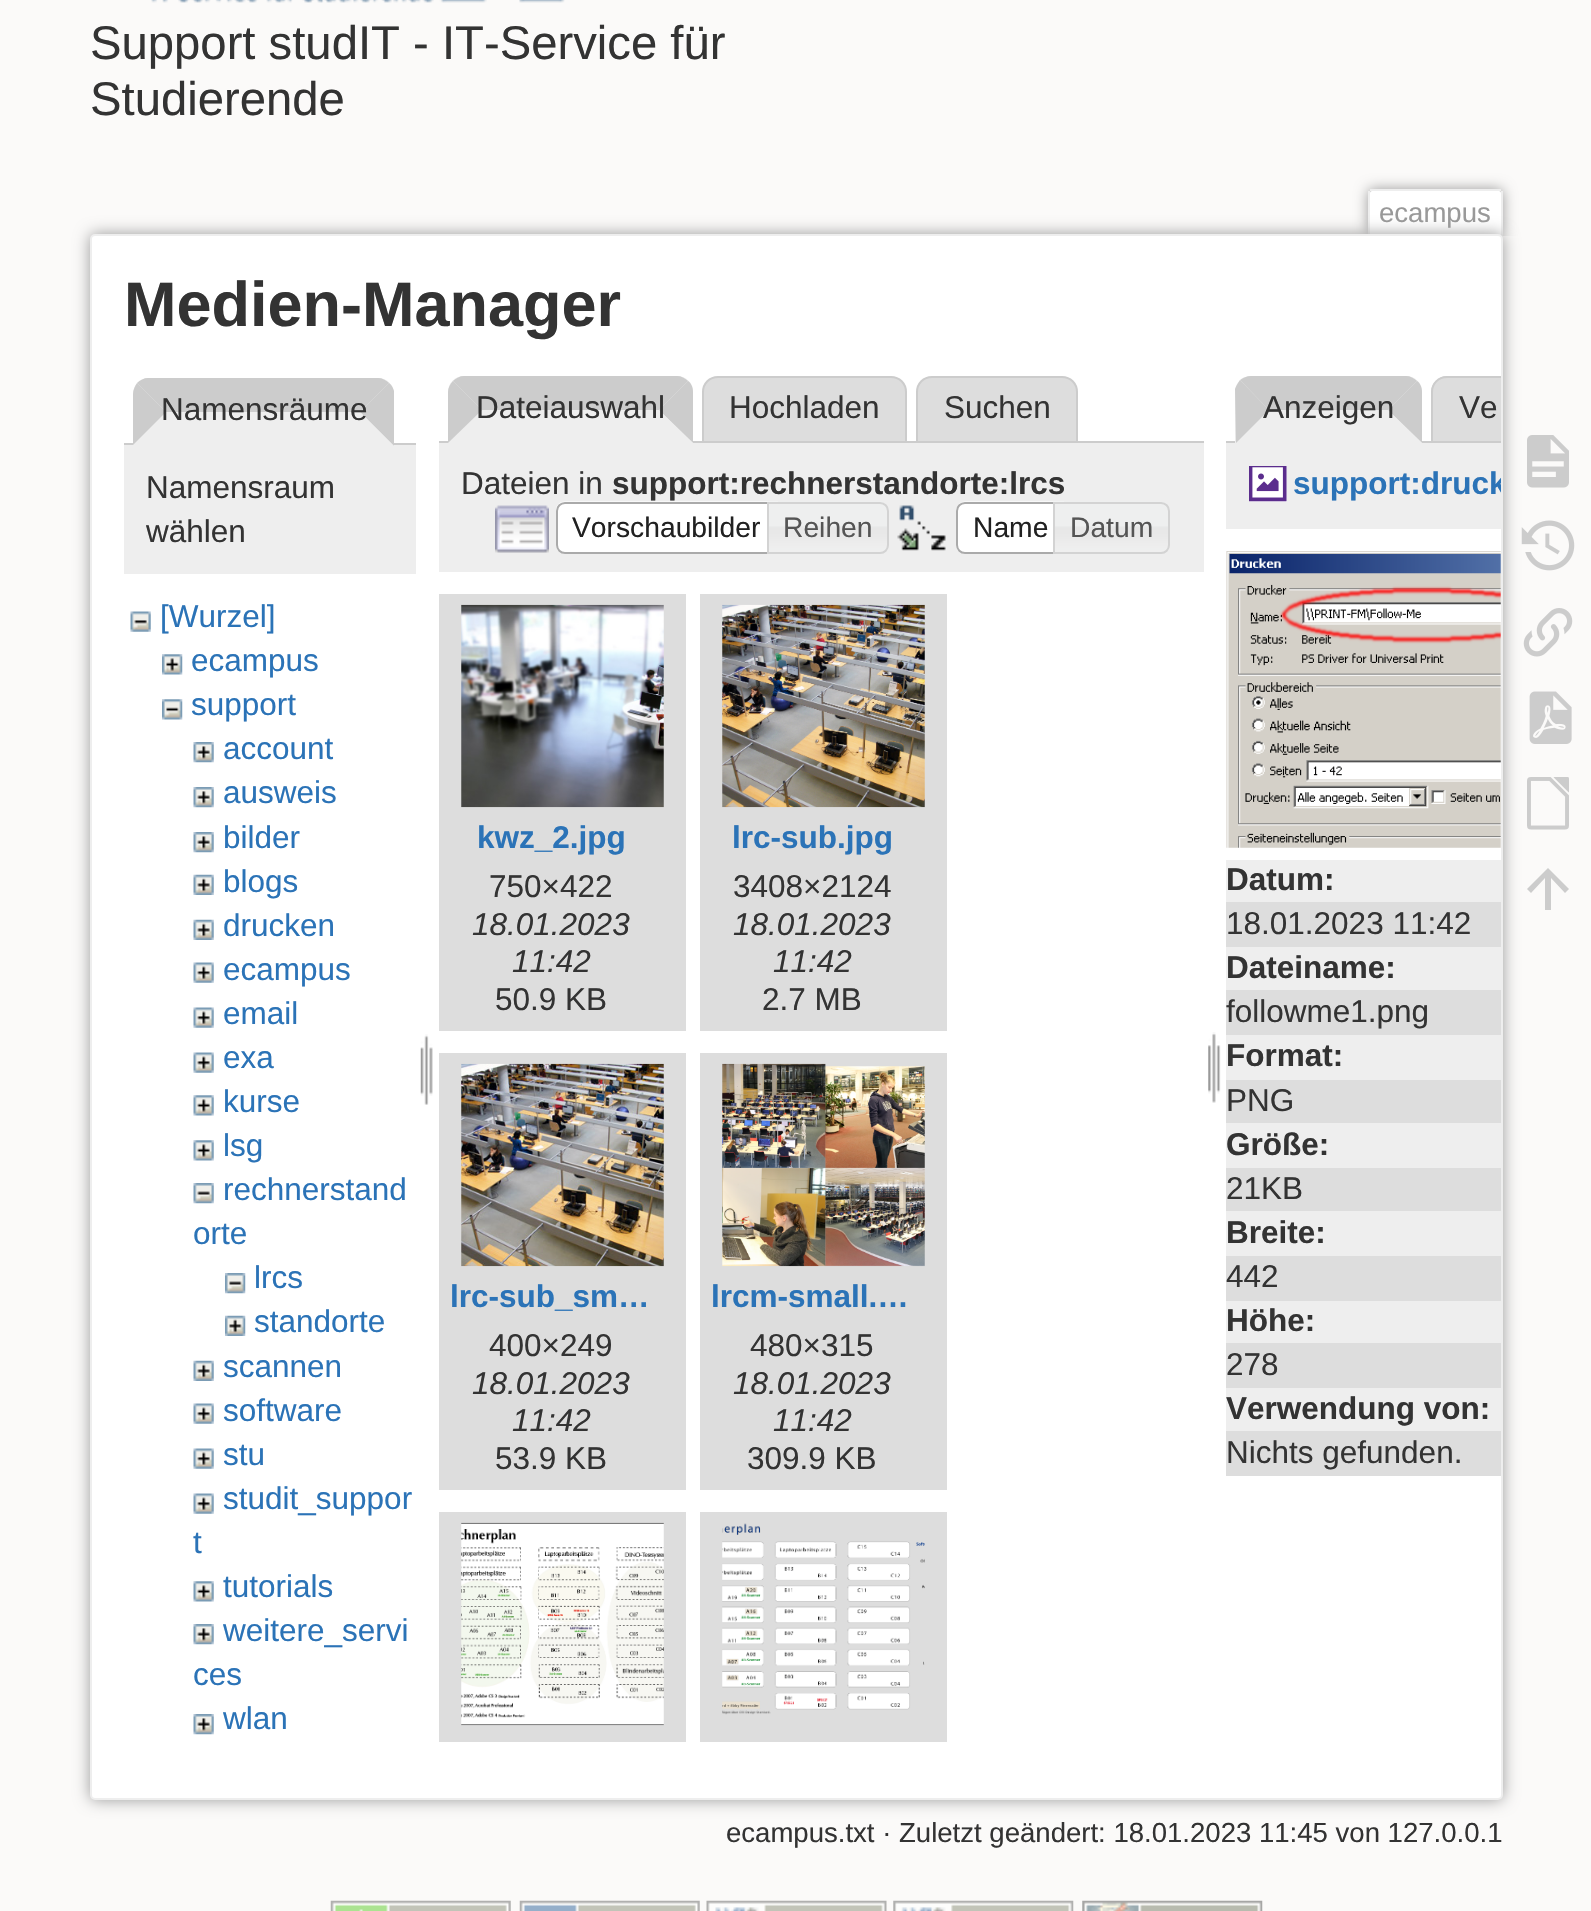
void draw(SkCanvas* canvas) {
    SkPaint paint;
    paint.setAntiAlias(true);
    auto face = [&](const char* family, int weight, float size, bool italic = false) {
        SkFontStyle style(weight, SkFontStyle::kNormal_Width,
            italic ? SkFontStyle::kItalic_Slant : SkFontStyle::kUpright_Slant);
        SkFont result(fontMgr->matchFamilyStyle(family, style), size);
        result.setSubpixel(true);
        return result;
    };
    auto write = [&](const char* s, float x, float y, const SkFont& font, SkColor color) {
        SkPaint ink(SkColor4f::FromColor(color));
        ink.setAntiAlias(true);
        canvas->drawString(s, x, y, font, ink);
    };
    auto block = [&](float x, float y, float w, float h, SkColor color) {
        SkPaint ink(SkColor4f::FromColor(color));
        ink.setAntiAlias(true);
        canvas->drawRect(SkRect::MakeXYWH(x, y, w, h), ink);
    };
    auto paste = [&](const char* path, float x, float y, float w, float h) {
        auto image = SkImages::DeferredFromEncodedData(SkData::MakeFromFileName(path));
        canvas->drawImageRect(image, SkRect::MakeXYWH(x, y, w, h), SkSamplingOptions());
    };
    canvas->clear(SkColorSetRGB(251, 250, 249));
    paste("pic1.png", 151, 0, 414, 3);
    auto kFont1 = face("Liberation Sans", 400, 47.25f);
    write("Support studIT - IT-Service für", 90, 59, kFont1, SkColorSetRGB(51, 51, 51));
    write("Studierende", 90, 115, kFont1, SkColorSetRGB(51, 51, 51));
    canvas->save();
    canvas->clipRect(SkRect::MakeXYWH(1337, 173, 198, 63));
    paint.setColor(SkColorSetRGB(153, 153, 153));
    paint.setMaskFilter(SkMaskFilter::MakeBlur(kNormal_SkBlurStyle, 7));
    canvas->drawRoundRect(SkRect::MakeXYWH(1368, 189, 135, 47), 5, 5, paint);
    paint.setMaskFilter(nullptr);
    canvas->restore();
    paint.setColor(SK_ColorWHITE);
    canvas->drawPath(SkPathBuilder().moveTo(1372, 191).lineTo(1499, 191).cubicTo(1500, 191, 1501, 192, 1501, 193).lineTo(1501, 236).lineTo(1370, 236).lineTo(1370, 193).cubicTo(1370, 192, 1371, 191, 1372, 191).close().detach(), paint);
    block(1370, 189, 131, 2, SkColorSetRGB(238, 238, 238));
    block(1501, 191, 2, 45, SkColorSetRGB(238, 238, 238));
    block(1368, 191, 2, 45, SkColorSetRGB(238, 238, 238));
    auto kFont2 = face("Liberation Sans", 400, 27.55f);
    write("ecampus", 1379, 222, kFont2, SkColorSetRGB(153, 153, 153));
    paint.setColor(SkColorSetRGB(153, 153, 153));
    paint.setMaskFilter(SkMaskFilter::MakeBlur(kNormal_SkBlurStyle, 8));
    canvas->drawRoundRect(SkRect::MakeXYWH(90, 234, 1413, 1566), 5, 5, paint);
    paint.setMaskFilter(nullptr);
    paint.setColor(SK_ColorWHITE);
    canvas->drawRoundRect(SkRect::MakeXYWH(91, 235, 1411, 1564), 4, 4, paint);
    paint.setStyle(SkPaint::kStroke_Style);
    paint.setStrokeWidth(2);
    paint.setColor(SkColorSetRGB(238, 238, 238));
    canvas->drawRoundRect(SkRect::MakeXYWH(91, 235, 1411, 1564), 4, 4, paint);
    auto kFont3 = face("Liberation Sans", 700, 63);
    write("Medien-Manager", 124, 326, kFont3, SkColorSetRGB(51, 51, 51));
    block(124, 445, 292, 129, SkColorSetRGB(238, 238, 238));
    block(124, 443, 292, 2, SkColorSetRGB(204, 204, 204));
    paint.setStyle(SkPaint::kFill_Style);
    canvas->drawPath(SkPathBuilder().moveTo(149, 378).lineTo(378, 378).cubicTo(387, 378, 394, 385, 394, 394).lineTo(394, 446).lineTo(133, 446).lineTo(133, 394).cubicTo(133, 385, 140, 378, 149, 378).close().detach(), paint);
    paint.setColor(SkColorSetRGB(204, 204, 204));
    canvas->drawPath(SkPathBuilder().moveTo(148, 378).lineTo(378, 378).cubicTo(382, 378, 386, 380, 389, 383).lineTo(360, 412).lineTo(166, 412).lineTo(137, 383).cubicTo(140, 380, 144, 378, 148, 378).close().detach(), paint);
    canvas->drawPath(SkPathBuilder().moveTo(389, 383).lineTo(360, 412).lineTo(394, 446).lineTo(394, 391).cubicTo(393, 388, 392, 385, 389, 383).close().detach(), paint);
    paint.setColor(SkColorSetRGB(238, 238, 238));
    canvas->drawPath(SkPathBuilder().moveTo(394, 446).lineTo(360, 412).lineTo(166, 412).lineTo(133, 446).close().detach(), paint);
    paint.setColor(SkColorSetRGB(204, 204, 204));
    canvas->drawPath(SkPathBuilder().moveTo(137, 383).cubicTo(135, 386, 133, 390, 133, 394).lineTo(133, 445).lineTo(166, 412).close().detach(), paint);
    auto kFont4 = face("Liberation Sans", 400, 31.5f);
    write("Namensräume", 161, 420, kFont4, SkColorSetRGB(51, 51, 51));
    write("Namensraum", 146, 498, kFont4, SkColorSetRGB(51, 51, 51));
    write("wählen", 146, 542, kFont4, SkColorSetRGB(51, 51, 51));
    paste("pic2.png", 130, 611, 21, 21);
    write("[Wurzel]", 160, 627, kFont4, SkColorSetRGB(43, 115, 183));
    paste("pic3.png", 162, 654, 21, 21);
    write("ecampus", 191, 671, kFont4, SkColorSetRGB(43, 115, 183));
    paste("pic4.png", 162, 699, 21, 21);
    write("support", 191, 715, kFont4, SkColorSetRGB(43, 115, 183));
    paste("pic5.png", 193, 742, 21, 21);
    write("account", 223, 759, kFont4, SkColorSetRGB(43, 115, 183));
    paste("pic5.png", 193, 787, 21, 21);
    write("ausweis", 223, 803, kFont4, SkColorSetRGB(43, 115, 183));
    paste("pic5.png", 193, 832, 21, 21);
    write("bilder", 223, 848, kFont4, SkColorSetRGB(43, 115, 183));
    paste("pic6.png", 193, 874, 21, 21);
    write("blogs", 223, 892, kFont4, SkColorSetRGB(43, 115, 183));
    paste("pic6.png", 193, 919, 21, 21);
    write("drucken", 223, 936, kFont4, SkColorSetRGB(43, 115, 183));
    paste("pic7.png", 193, 962, 21, 21);
    write("ecampus", 223, 980, kFont4, SkColorSetRGB(43, 115, 183));
    paste("pic8.png", 193, 1007, 21, 21);
    write("email", 223, 1024, kFont4, SkColorSetRGB(43, 115, 183));
    paste("pic8.png", 193, 1052, 21, 21);
    write("exa", 223, 1068, kFont4, SkColorSetRGB(43, 115, 183));
    paste("pic9.png", 193, 1095, 21, 21);
    write("kurse", 223, 1112, kFont4, SkColorSetRGB(43, 115, 183));
    paste("pic9.png", 193, 1140, 21, 21);
    write("lsg", 223, 1156, kFont4, SkColorSetRGB(43, 115, 183));
    paste("pic10.png", 193, 1183, 21, 21);
    write("rechnerstand", 223, 1200, kFont4, SkColorSetRGB(43, 115, 183));
    write("orte", 193, 1244, kFont4, SkColorSetRGB(43, 115, 183));
    paste("pic11.png", 225, 1273, 21, 21);
    write("lrcs", 254, 1288, kFont4, SkColorSetRGB(43, 115, 183));
    paste("pic12.png", 225, 1315, 21, 21);
    write("standorte", 254, 1332, kFont4, SkColorSetRGB(43, 115, 183));
    paste("pic13.png", 193, 1360, 21, 21);
    write("scannen", 223, 1377, kFont4, SkColorSetRGB(43, 115, 183));
    paste("pic8.png", 193, 1403, 21, 21);
    write("software", 223, 1421, kFont4, SkColorSetRGB(43, 115, 183));
    paste("pic8.png", 193, 1448, 21, 21);
    write("stu", 223, 1465, kFont4, SkColorSetRGB(43, 115, 183));
    paste("pic8.png", 193, 1493, 21, 21);
    write("studit_suppor", 223, 1509, kFont4, SkColorSetRGB(43, 115, 183));
    write("t", 193, 1553, kFont4, SkColorSetRGB(43, 115, 183));
    paste("pic9.png", 193, 1581, 21, 21);
    write("tutorials", 223, 1597, kFont4, SkColorSetRGB(43, 115, 183));
    paste("pic5.png", 193, 1624, 21, 21);
    write("weitere_servi", 223, 1641, kFont4, SkColorSetRGB(43, 115, 183));
    write("ces", 193, 1685, kFont4, SkColorSetRGB(43, 115, 183));
    paste("pic5.png", 193, 1714, 21, 21);
    write("wlan", 223, 1729, kFont4, SkColorSetRGB(43, 115, 183));
    paste("pic14.png", 420, 1034, 13, 71);
    paint.setColor(SkColorSetRGB(221, 221, 221));
    canvas->drawPath(SkPathBuilder().moveTo(718, 377).lineTo(891, 377).cubicTo(899.5f, 377, 906, 383.5f, 906, 392).lineTo(906, 442).lineTo(703, 442).lineTo(703, 392).cubicTo(703, 383.5f, 709.5f, 377, 718, 377).close().detach(), paint);
    paint.setStyle(SkPaint::kStroke_Style);
    paint.setColor(SkColorSetRGB(204, 204, 204));
    canvas->drawPath(SkPathBuilder().moveTo(718, 377).lineTo(891, 377).cubicTo(899.5f, 377, 906, 383.5f, 906, 392).lineTo(906, 442).lineTo(703, 442).lineTo(703, 392).cubicTo(703, 383.5f, 709.5f, 377, 718, 377).close().detach(), paint);
    paint.setStyle(SkPaint::kFill_Style);
    paint.setColor(SkColorSetRGB(221, 221, 221));
    canvas->drawPath(SkPathBuilder().moveTo(932, 377).lineTo(1062, 377).cubicTo(1070.5f, 377, 1077, 383.5f, 1077, 392).lineTo(1077, 442).lineTo(917, 442).lineTo(917, 392).cubicTo(917, 383.5f, 923.5f, 377, 932, 377).close().detach(), paint);
    paint.setStyle(SkPaint::kStroke_Style);
    paint.setColor(SkColorSetRGB(204, 204, 204));
    canvas->drawPath(SkPathBuilder().moveTo(932, 377).lineTo(1062, 377).cubicTo(1070.5f, 377, 1077, 383.5f, 1077, 392).lineTo(1077, 442).lineTo(917, 442).lineTo(917, 392).cubicTo(917, 383.5f, 923.5f, 377, 932, 377).close().detach(), paint);
    block(439, 441, 765, 2, SkColorSetRGB(204, 204, 204));
    paint.setStyle(SkPaint::kFill_Style);
    paint.setColor(SkColorSetRGB(238, 238, 238));
    canvas->drawPath(SkPathBuilder().moveTo(464, 376).lineTo(677, 376).cubicTo(686, 376, 693, 383, 693, 392).lineTo(693, 443).lineTo(448, 443).lineTo(448, 392).cubicTo(448, 383, 455, 376, 464, 376).close().detach(), paint);
    paint.setColor(SkColorSetRGB(204, 204, 204));
    canvas->drawPath(SkPathBuilder().moveTo(464, 376).cubicTo(460, 376, 456, 378, 453, 381).lineTo(482, 410).lineTo(659, 410).lineTo(688, 381).cubicTo(685, 378, 681, 376, 677, 376).close().detach(), paint);
    canvas->drawPath(SkPathBuilder().moveTo(693, 443).lineTo(659, 410).lineTo(688, 381).cubicTo(691, 383, 693, 387, 693, 392).close().detach(), paint);
    paint.setColor(SkColorSetRGB(238, 238, 238));
    canvas->drawPath(SkPathBuilder().moveTo(693, 443).lineTo(659, 410).lineTo(482, 410).lineTo(448, 443).close().detach(), paint);
    paint.setColor(SkColorSetRGB(204, 204, 204));
    canvas->drawPath(SkPathBuilder().moveTo(453, 381).cubicTo(450, 384, 448, 388, 448, 392).lineTo(448, 443).lineTo(482, 410).close().detach(), paint);
    write("Dateiauswahl", 476, 418, kFont4, SkColorSetRGB(51, 51, 51));
    write("Hochladen", 729, 418, kFont4, SkColorSetRGB(51, 51, 51));
    write("Suchen", 944, 418, kFont4, SkColorSetRGB(51, 51, 51));
    block(439, 443, 765, 129, SkColorSetRGB(238, 238, 238));
    write("Dateien in", 461, 494, kFont4, SkColorSetRGB(51, 51, 51));
    auto kFont5 = face("Liberation Sans", 700, 31.5f);
    write("support:rechnerstandorte:lrcs", 612, 494, kFont5, SkColorSetRGB(51, 51, 51));
    paste("pic15.png", 495, 505, 54, 48);
    paint.setColor(SK_ColorWHITE);
    canvas->drawPath(SkPathBuilder().moveTo(565, 502).lineTo(779, 502).lineTo(779, 554).lineTo(565, 554).cubicTo(560, 554, 556, 550, 556, 545).lineTo(556, 511).cubicTo(556, 506, 560, 502, 565, 502).close().detach(), paint);
    paste("pic16.png", 556, 501, 222, 8);
    paint.setStyle(SkPaint::kStroke_Style);
    paint.setColor(SkColorSetRGB(170, 170, 170));
    canvas->drawPath(SkPathBuilder().moveTo(565, 503).lineTo(778, 503).lineTo(778, 553).lineTo(565, 553).cubicTo(560.5f, 553, 557, 549.5f, 557, 545).lineTo(557, 511).cubicTo(557, 506.5f, 560.5f, 503, 565, 503).close().detach(), paint);
    auto kFont6 = face("Liberation Sans", 400, 28.25f);
    write("Vorschaubilder", 572, 537, kFont6, SkColorSetRGB(33, 33, 33));
    paste("pic17.png", 767, 501, 122, 51);
    paint.setColor(SkColorSetRGB(211, 211, 211));
    canvas->drawPath(SkPathBuilder().moveTo(768, 503).lineTo(880, 503).cubicTo(884.5f, 503, 888, 506.5f, 888, 511).lineTo(888, 545).cubicTo(888, 549.5f, 884.5f, 553, 880, 553).lineTo(768, 553).close().detach(), paint);
    write("Reihen", 783, 537, kFont6, SkColorSetRGB(85, 85, 85));
    paste("pic18.png", 897, 505, 49, 46);
    paint.setStyle(SkPaint::kFill_Style);
    paint.setColor(SK_ColorWHITE);
    canvas->drawPath(SkPathBuilder().moveTo(965, 502).lineTo(1064, 502).lineTo(1064, 554).lineTo(965, 554).cubicTo(960, 554, 956, 550, 956, 545).lineTo(956, 511).cubicTo(956, 506, 960, 502, 965, 502).close().detach(), paint);
    paste("pic19.png", 958, 501, 106, 4);
    paint.setStyle(SkPaint::kStroke_Style);
    paint.setColor(SkColorSetRGB(170, 170, 170));
    canvas->drawPath(SkPathBuilder().moveTo(965, 503).lineTo(1063, 503).lineTo(1063, 553).lineTo(965, 553).cubicTo(960.5f, 553, 957, 549.5f, 957, 545).lineTo(957, 511).cubicTo(957, 506.5f, 960.5f, 503, 965, 503).close().detach(), paint);
    write("Name", 973, 537, kFont6, SkColorSetRGB(33, 33, 33));
    paste("pic20.png", 1053, 501, 117, 51);
    paint.setColor(SkColorSetRGB(211, 211, 211));
    canvas->drawPath(SkPathBuilder().moveTo(1054, 503).lineTo(1161, 503).cubicTo(1165.5f, 503, 1169, 506.5f, 1169, 511).lineTo(1169, 545).cubicTo(1169, 549.5f, 1165.5f, 553, 1161, 553).lineTo(1054, 553).close().detach(), paint);
    write("Datum", 1070, 537, kFont6, SkColorSetRGB(85, 85, 85));
    block(439, 594, 247, 437, SkColorSetRGB(221, 221, 221));
    paste("pic21.png", 461, 604, 203, 204);
    write("kwz_2.jpg", 477, 848, kFont5, SkColorSetRGB(43, 115, 183));
    write("750×422", 489, 897, kFont4, SkColorSetRGB(51, 51, 51));
    auto kFont7 = face("Liberation Sans", 400, 31.5f, true);
    write("18.01.2023", 472, 935, kFont7, SkColorSetRGB(51, 51, 51));
    write("11:42", 512, 972, kFont7, SkColorSetRGB(51, 51, 51));
    write("50.9 KB", 495, 1010, kFont4, SkColorSetRGB(51, 51, 51));
    block(700, 594, 247, 437, SkColorSetRGB(221, 221, 221));
    paste("pic22.png", 722, 604, 203, 204);
    write("lrc-sub.jpg", 732, 848, kFont5, SkColorSetRGB(43, 115, 183));
    write("3408×2124", 733, 897, kFont4, SkColorSetRGB(51, 51, 51));
    write("18.01.2023", 733, 935, kFont7, SkColorSetRGB(51, 51, 51));
    write("11:42", 773, 972, kFont7, SkColorSetRGB(51, 51, 51));
    write("2.7 MB", 762, 1010, kFont4, SkColorSetRGB(51, 51, 51));
    block(439, 1053, 247, 437, SkColorSetRGB(221, 221, 221));
    paste("pic23.png", 461, 1063, 203, 204);
    write("lrc-sub_sm…", 450, 1307, kFont5, SkColorSetRGB(43, 115, 183));
    write("400×249", 489, 1356, kFont4, SkColorSetRGB(51, 51, 51));
    write("18.01.2023", 472, 1394, kFont7, SkColorSetRGB(51, 51, 51));
    write("11:42", 512, 1431, kFont7, SkColorSetRGB(51, 51, 51));
    write("53.9 KB", 495, 1469, kFont4, SkColorSetRGB(51, 51, 51));
    block(700, 1053, 247, 437, SkColorSetRGB(221, 221, 221));
    paste("pic24.png", 722, 1063, 203, 204);
    write("lrcm-small.…", 711, 1307, kFont5, SkColorSetRGB(43, 115, 183));
    write("480×315", 750, 1356, kFont4, SkColorSetRGB(51, 51, 51));
    write("18.01.2023", 733, 1394, kFont7, SkColorSetRGB(51, 51, 51));
    write("11:42", 773, 1431, kFont7, SkColorSetRGB(51, 51, 51));
    write("309.9 KB", 747, 1469, kFont4, SkColorSetRGB(51, 51, 51));
    block(439, 1512, 247, 230, SkColorSetRGB(221, 221, 221));
    paste("pic25.png", 461, 1522, 203, 204);
    block(700, 1512, 247, 230, SkColorSetRGB(221, 221, 221));
    paste("pic26.png", 722, 1523, 203, 192);
    paste("pic27.png", 1208, 1032, 13, 71);
    block(1226, 441, 205, 2, SkColorSetRGB(204, 204, 204));
    paint.setStyle(SkPaint::kFill_Style);
    paint.setColor(SkColorSetRGB(238, 238, 238));
    canvas->drawPath(SkPathBuilder().moveTo(1251, 376).lineTo(1406, 376).cubicTo(1415, 376, 1422, 383, 1422, 392).lineTo(1422, 443).lineTo(1235, 443).lineTo(1235, 392).cubicTo(1235, 383, 1242, 376, 1251, 376).close().detach(), paint);
    paint.setColor(SkColorSetRGB(204, 204, 204));
    canvas->drawPath(SkPathBuilder().moveTo(1251, 376).cubicTo(1247, 376, 1243, 378, 1240, 380).lineTo(1269, 410).lineTo(1388, 410).lineTo(1417, 381).cubicTo(1414, 378, 1410, 376, 1406, 376).close().detach(), paint);
    canvas->drawPath(SkPathBuilder().moveTo(1422, 443).lineTo(1388, 410).lineTo(1417, 381).cubicTo(1420, 383, 1422, 387, 1422, 392).close().detach(), paint);
    paint.setColor(SkColorSetRGB(238, 238, 238));
    canvas->drawPath(SkPathBuilder().moveTo(1422, 443).lineTo(1388, 410).lineTo(1269, 410).lineTo(1236, 443).close().detach(), paint);
    paint.setColor(SkColorSetRGB(204, 204, 204));
    canvas->drawPath(SkPathBuilder().moveTo(1235, 389).cubicTo(1236, 386, 1238, 383, 1240, 380).lineTo(1269, 410).lineTo(1236, 443).close().detach(), paint);
    write("Anzeigen", 1263, 418, kFont4, SkColorSetRGB(51, 51, 51));
    paint.setColor(SkColorSetRGB(221, 221, 221));
    canvas->drawPath(SkPathBuilder().moveTo(1447, 376).lineTo(1501, 376).lineTo(1501, 443).lineTo(1431, 443).lineTo(1431, 392).cubicTo(1431, 383, 1438, 376, 1447, 376).close().detach(), paint);
    paint.setColor(SkColorSetRGB(204, 204, 204));
    canvas->drawPath(SkPathBuilder().moveTo(1447, 376).cubicTo(1438, 376, 1431, 383, 1431, 392).lineTo(1431, 443).lineTo(1501, 443).lineTo(1501, 441).lineTo(1433, 441).lineTo(1433, 392).cubicTo(1433, 384, 1439, 378, 1447, 378).lineTo(1501, 378).lineTo(1501, 376).close().detach(), paint);
    write("Ve", 1459, 418, kFont4, SkColorSetRGB(51, 51, 51));
    block(1226, 443, 275, 86, SkColorSetRGB(238, 238, 238));
    paste("pic28.png", 1249, 466, 38, 36);
    canvas->save();
    canvas->clipPath(SkPathBuilder().moveTo(94, 236).lineTo(1499, 236).cubicTo(1500, 236, 1501, 237, 1501, 238).lineTo(1501, 1796).cubicTo(1501, 1797, 1500, 1798, 1499, 1798).lineTo(94, 1798).cubicTo(93, 1798, 92, 1797, 92, 1796).lineTo(92, 238).cubicTo(92, 237, 93, 236, 94, 236).close().detach(), true);
    write("support:druck", 1293, 494, kFont5, SkColorSetRGB(43, 115, 183));
    canvas->restore();
    paste("pic29.png", 1226, 551, 275, 297);
    block(1226, 860, 275, 42, SkColorSetRGB(238, 238, 238));
    write("Datum:", 1226, 890, kFont5, SkColorSetRGB(51, 51, 51));
    block(1226, 902, 275, 45, SkColorSetRGB(221, 221, 221));
    write("18.01.2023 11:42", 1226, 934, kFont4, SkColorSetRGB(51, 51, 51));
    block(1226, 947, 275, 43, SkColorSetRGB(238, 238, 238));
    write("Dateiname:", 1226, 978, kFont5, SkColorSetRGB(51, 51, 51));
    block(1226, 990, 275, 45, SkColorSetRGB(221, 221, 221));
    write("followme1.png", 1226, 1022, kFont4, SkColorSetRGB(51, 51, 51));
    block(1226, 1035, 275, 45, SkColorSetRGB(238, 238, 238));
    write("Format:", 1226, 1066, kFont5, SkColorSetRGB(51, 51, 51));
    block(1226, 1080, 275, 43, SkColorSetRGB(221, 221, 221));
    write("PNG", 1226, 1111, kFont4, SkColorSetRGB(51, 51, 51));
    block(1226, 1123, 275, 45, SkColorSetRGB(238, 238, 238));
    write("Größe:", 1226, 1155, kFont5, SkColorSetRGB(51, 51, 51));
    block(1226, 1168, 275, 43, SkColorSetRGB(221, 221, 221));
    write("21KB", 1226, 1199, kFont4, SkColorSetRGB(51, 51, 51));
    block(1226, 1211, 275, 45, SkColorSetRGB(238, 238, 238));
    write("Breite:", 1226, 1243, kFont5, SkColorSetRGB(51, 51, 51));
    block(1226, 1256, 275, 45, SkColorSetRGB(221, 221, 221));
    write("442", 1226, 1287, kFont4, SkColorSetRGB(51, 51, 51));
    block(1226, 1301, 275, 42, SkColorSetRGB(238, 238, 238));
    write("Höhe:", 1226, 1331, kFont5, SkColorSetRGB(51, 51, 51));
    block(1226, 1343, 275, 45, SkColorSetRGB(221, 221, 221));
    write("278", 1226, 1375, kFont4, SkColorSetRGB(51, 51, 51));
    block(1226, 1388, 275, 43, SkColorSetRGB(238, 238, 238));
    write("Verwendung von:", 1226, 1419, kFont5, SkColorSetRGB(51, 51, 51));
    block(1226, 1431, 275, 45, SkColorSetRGB(221, 221, 221));
    write("Nichts gefunden.", 1226, 1463, kFont4, SkColorSetRGB(51, 51, 51));
    write("ecampus.txt · Zuletzt geändert: 18.01.2023 11:45 von 127.0.0.1", 726, 1842, kFont2, SkColorSetRGB(51, 51, 51));
    paste("pic30.png", 1527, 435, 42, 53);
    paste("pic31.png", 1521, 520, 54, 51);
    paste("pic32.png", 1523, 608, 50, 49);
    paste("pic33.png", 1529, 691, 43, 53);
    paste("pic34.png", 1527, 777, 42, 53);
    canvas->drawPath(SkPathBuilder().moveTo(1551, 910).lineTo(1545, 910).lineTo(1545, 878).lineTo(1531, 893).lineTo(1527, 889).lineTo(1548, 868).lineTo(1569, 889).lineTo(1565, 893).lineTo(1551, 878).close().detach(), paint);
    paste("pic35.png", 330, 1900, 181, 11);
    paste("pic36.png", 519, 1900, 181, 11);
    paste("pic37.png", 706, 1900, 181, 11);
    paste("pic38.png", 893, 1900, 181, 11);
    paste("pic39.png", 1082, 1900, 181, 11);
}
